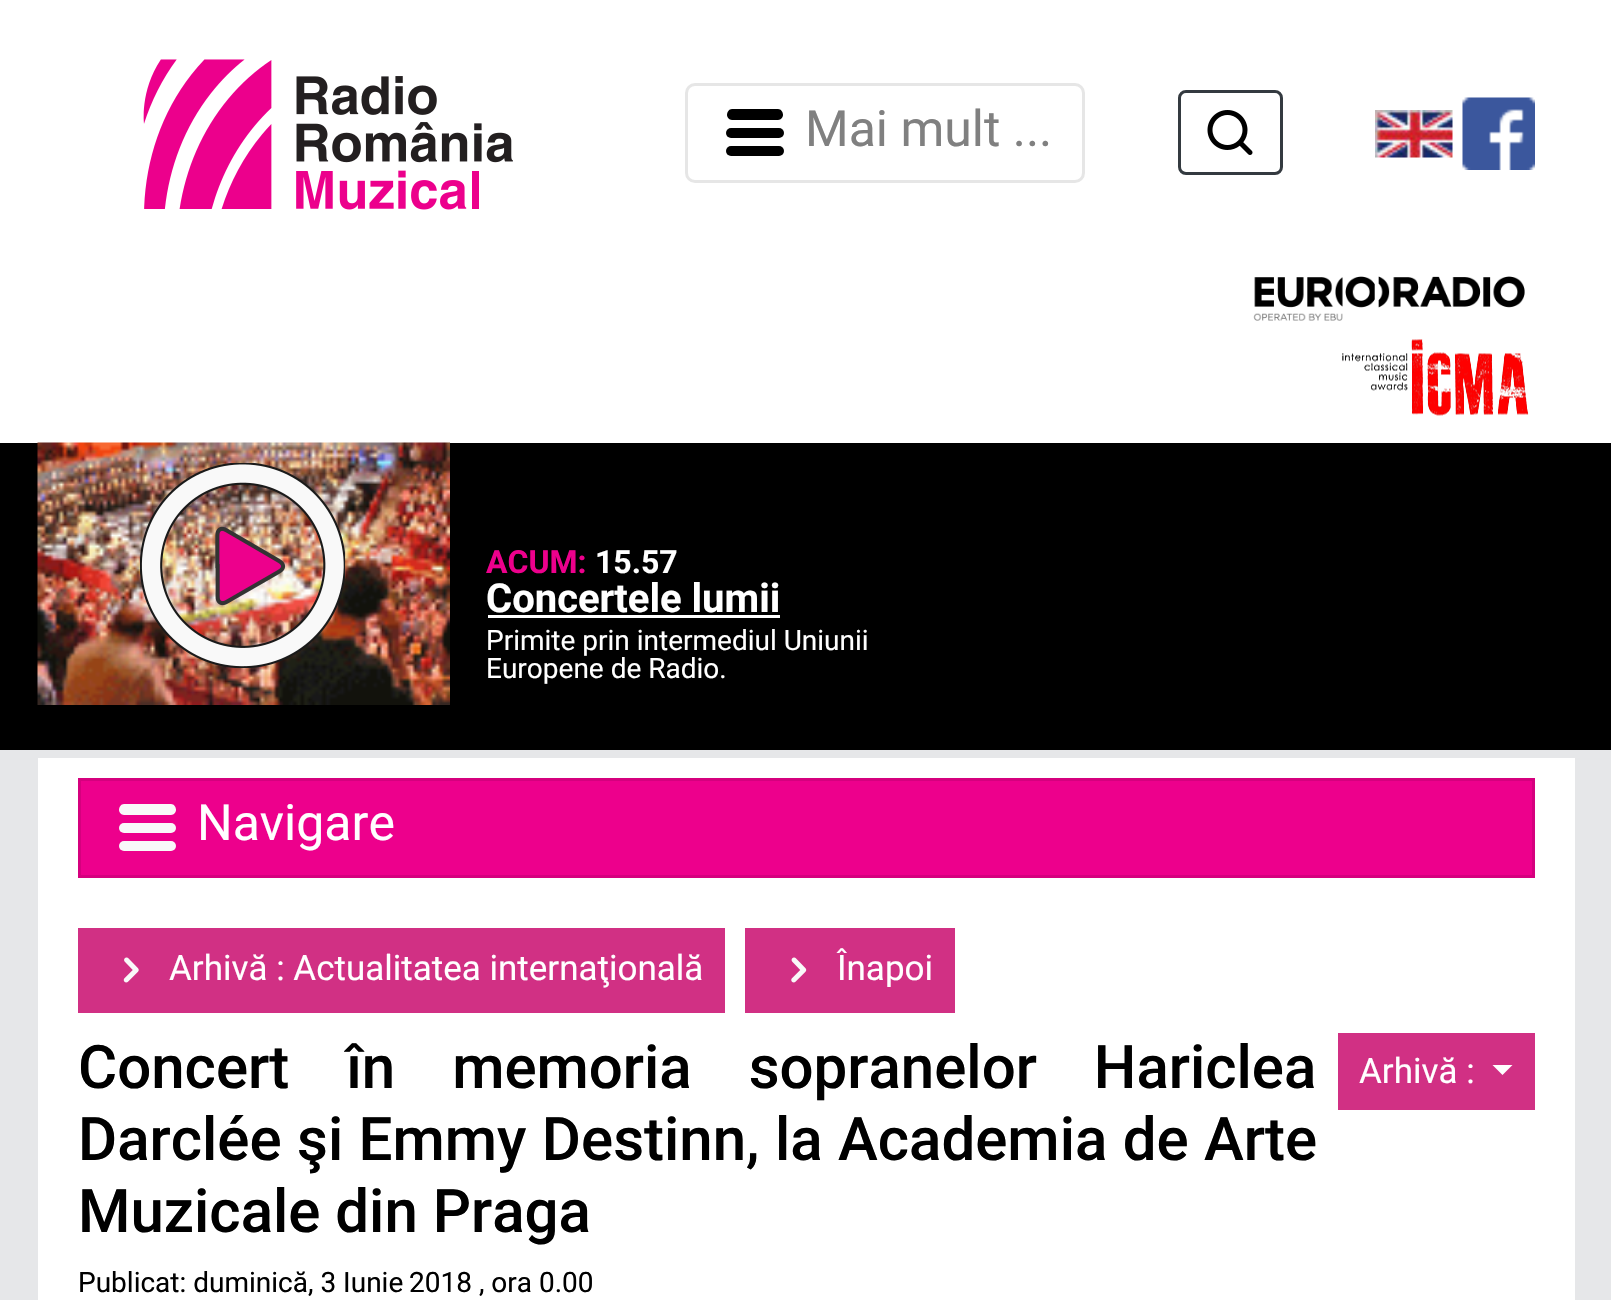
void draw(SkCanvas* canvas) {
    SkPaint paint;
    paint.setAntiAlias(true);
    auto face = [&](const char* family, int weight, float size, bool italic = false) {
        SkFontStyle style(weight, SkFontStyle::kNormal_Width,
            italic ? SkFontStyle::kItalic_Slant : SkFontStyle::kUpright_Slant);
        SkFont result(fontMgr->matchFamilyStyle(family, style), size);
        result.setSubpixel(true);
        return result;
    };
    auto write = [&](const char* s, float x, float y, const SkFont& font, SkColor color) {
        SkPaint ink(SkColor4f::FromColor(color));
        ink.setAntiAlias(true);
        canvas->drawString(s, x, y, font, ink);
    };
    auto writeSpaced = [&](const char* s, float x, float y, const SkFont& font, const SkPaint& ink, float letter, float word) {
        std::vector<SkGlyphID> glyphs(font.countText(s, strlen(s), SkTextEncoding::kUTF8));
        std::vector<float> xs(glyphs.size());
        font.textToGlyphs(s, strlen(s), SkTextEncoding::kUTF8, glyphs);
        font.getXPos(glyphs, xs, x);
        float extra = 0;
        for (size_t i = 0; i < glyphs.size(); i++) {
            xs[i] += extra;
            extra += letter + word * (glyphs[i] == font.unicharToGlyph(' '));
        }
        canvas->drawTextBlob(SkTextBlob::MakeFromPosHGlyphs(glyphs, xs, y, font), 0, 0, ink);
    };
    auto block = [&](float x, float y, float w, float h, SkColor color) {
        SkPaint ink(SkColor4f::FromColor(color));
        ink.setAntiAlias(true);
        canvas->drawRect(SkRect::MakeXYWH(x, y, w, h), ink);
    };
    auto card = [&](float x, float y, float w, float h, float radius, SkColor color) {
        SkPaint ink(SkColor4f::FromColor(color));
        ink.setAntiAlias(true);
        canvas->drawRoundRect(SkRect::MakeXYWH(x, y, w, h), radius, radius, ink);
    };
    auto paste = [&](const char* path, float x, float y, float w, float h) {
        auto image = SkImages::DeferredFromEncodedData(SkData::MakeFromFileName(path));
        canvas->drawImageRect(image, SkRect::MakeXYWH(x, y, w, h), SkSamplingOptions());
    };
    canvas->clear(SkColorSetRGB(230, 231, 233));
    block(0, 0, 1611, 443, SK_ColorWHITE);
    paste("pic1.png", 143, 59, 370, 151);
    paint.setStyle(SkPaint::kStroke_Style);
    paint.setStrokeWidth(3);
    paint.setColor(SkColorSetRGB(230, 230, 230));
    canvas->drawRoundRect(SkRect::MakeXYWH(686.5f, 84.5f, 397, 97), 8.5f, 8.5f, paint);
    paint.setStyle(SkPaint::kFill_Style);
    paint.setColor(SK_ColorBLACK);
    canvas->drawPath(SkPathBuilder().moveTo(732, 120).lineTo(778, 120).cubicTo(781, 120, 783, 117, 783, 115).cubicTo(783, 112, 781, 109, 778, 109).lineTo(732, 109).cubicTo(729, 109, 727, 112, 727, 115).cubicTo(727, 117, 729, 120, 732, 120).close().detach(), paint);
    card(726, 128, 58, 10, 5, SK_ColorBLACK);
    card(726, 146, 58, 10, 5, SK_ColorBLACK);
    auto kFont1 = face("Roboto", 400, 50);
    write("Mai mult ...", 805, 146, kFont1, SkColorSetRGB(128, 128, 128));
    paint.setStyle(SkPaint::kStroke_Style);
    paint.setColor(SkColorSetRGB(52, 58, 64));
    canvas->drawRoundRect(SkRect::MakeXYWH(1179.5f, 91.5f, 102, 82), 6.5f, 6.5f, paint);
    paste("pic2.png", 1207, 110, 46, 45);
    paste("pic3.png", 1375, 110, 78, 48);
    paste("pic4.png", 1462, 97, 73, 73);
    paste("pic5.png", 1253, 276, 272, 45);
    paste("pic6.png", 1342, 339, 187, 77);
    block(0, 443, 1611, 307, SK_ColorBLACK);
    paste("pic7.png", 37, 442, 413, 263);
    paste("pic8.png", 140, 463, 205, 205);
    auto kFont2 = face("Roboto", 700, 32);
    write("ACUM:", 486, 573, kFont2, SkColorSetRGB(237, 0, 140));
    write("15.57", 595, 573, kFont2, SK_ColorWHITE);
    auto kFont3 = face("Roboto", 700, 40);
    write("Concertele lumii", 486, 612, kFont3, SK_ColorWHITE);
    block(488, 615, 292, 3, SK_ColorWHITE);
    auto kFont4 = face("Roboto", 400, 28);
    write("Primite prin intermediul Uniunii", 486, 650, kFont4, SK_ColorWHITE);
    write("Europene de Radio.", 486, 678, kFont4, SK_ColorWHITE);
    block(38, 758, 1537, 542, SK_ColorWHITE);
    paint.setStyle(SkPaint::kFill_Style);
    paint.setColor(SkColorSetRGB(237, 0, 140));
    canvas->drawRect(SkRect::MakeXYWH(79.5f, 779.5f, 1454, 97), paint);
    paint.setStyle(SkPaint::kStroke_Style);
    paint.setColor(SkColorSetRGB(213, 0, 126));
    canvas->drawRect(SkRect::MakeXYWH(79.5f, 779.5f, 1454, 97), paint);
    paint.setStyle(SkPaint::kFill_Style);
    paint.setColor(SkColorSetRGB(249, 249, 249));
    canvas->drawPath(SkPathBuilder().moveTo(124, 815).lineTo(171, 815).cubicTo(174, 815, 176, 812, 176, 810).cubicTo(176, 807, 174, 804, 171, 804).lineTo(124, 804).cubicTo(121, 804, 119, 807, 119, 810).cubicTo(119, 812, 121, 815, 124, 815).close().detach(), paint);
    card(119, 823, 57, 10, 5, SkColorSetRGB(249, 249, 249));
    card(119, 841, 57, 10, 5, SkColorSetRGB(249, 249, 249));
    write("Navigare", 197, 840, kFont1, SK_ColorWHITE);
    block(78, 928, 647, 85, SkColorSetRGB(209, 48, 132));
    paste("pic9.png", 123, 957, 16, 26);
    auto kFont5 = face("Roboto", 400, 35);
    write("Arhivă : Actualitatea internaţională", 169, 980, kFont5, SK_ColorWHITE);
    block(745, 928, 210, 85, SkColorSetRGB(209, 48, 132));
    paste("pic10.png", 791, 957, 16, 26);
    write("Înapoi", 837, 980, kFont5, SK_ColorWHITE);
    auto kFont6 = face("Roboto", 500, 60);
    paint.setColor(SK_ColorBLACK);
    writeSpaced("Concert în memoria sopranelor Hariclea", 78, 1088, kFont6, paint, 0, 42);
    writeSpaced("Darclée şi Emmy Destinn, la Academia de Arte", 78, 1160, kFont6, paint, 0, 0.5f);
    write("Muzicale din Praga", 78, 1232, kFont6, SK_ColorBLACK);
    write("Publicat: duminică, 3 Iunie", 78, 1292, kFont4, SK_ColorBLACK);
    write("2018 , ora 0.00", 409, 1292, kFont4, SK_ColorBLACK);
    block(1338, 1033, 197, 77, SkColorSetRGB(209, 48, 132));
    write("Arhivă :", 1359, 1083, kFont5, SK_ColorWHITE);
    paint.setColor(SK_ColorWHITE);
    canvas->drawPath(SkPathBuilder().moveTo(1492.5f, 1065).lineTo(1512.5f, 1065).lineTo(1502.5f, 1075).close().detach(), paint);
}
